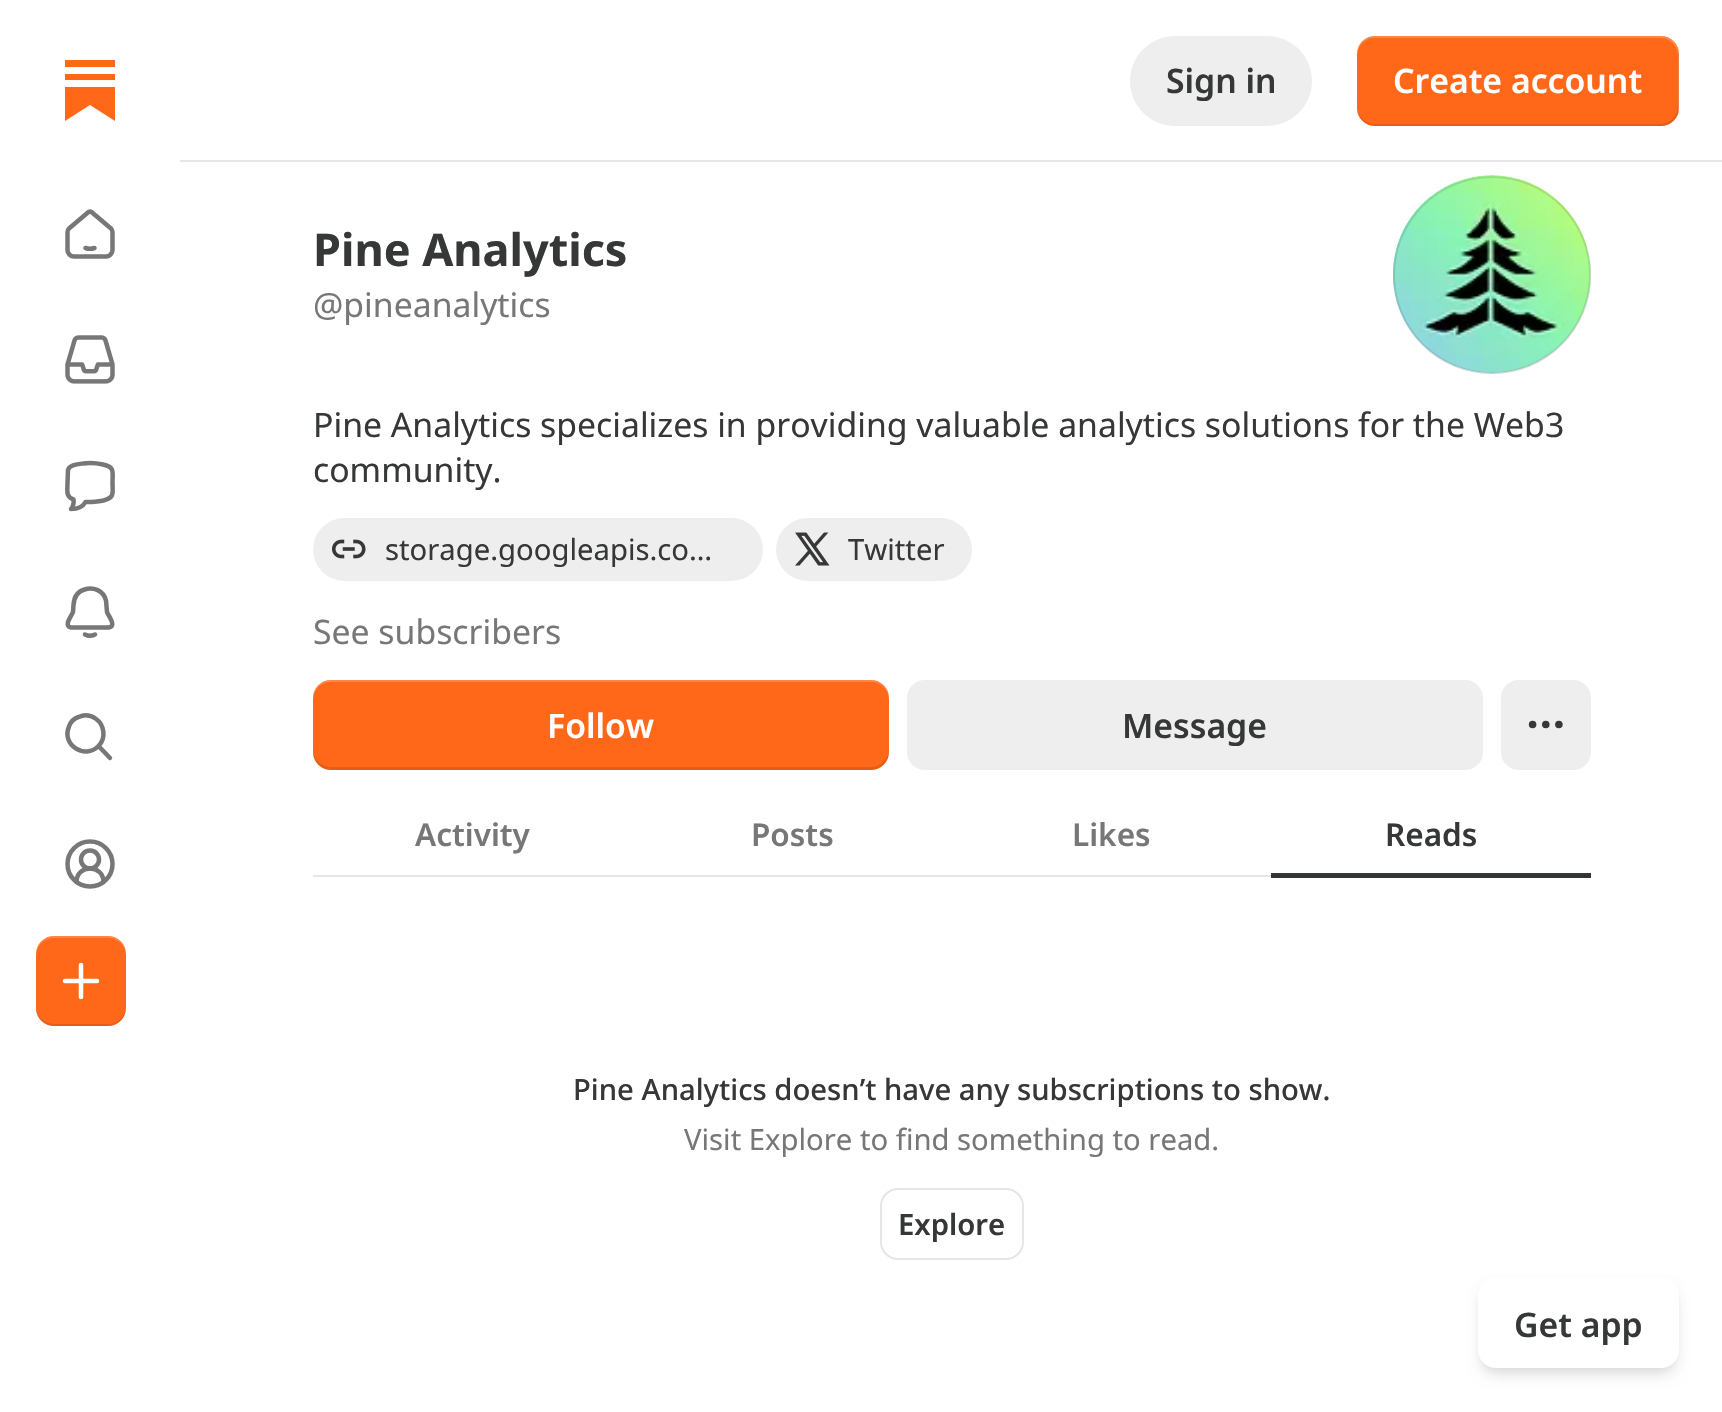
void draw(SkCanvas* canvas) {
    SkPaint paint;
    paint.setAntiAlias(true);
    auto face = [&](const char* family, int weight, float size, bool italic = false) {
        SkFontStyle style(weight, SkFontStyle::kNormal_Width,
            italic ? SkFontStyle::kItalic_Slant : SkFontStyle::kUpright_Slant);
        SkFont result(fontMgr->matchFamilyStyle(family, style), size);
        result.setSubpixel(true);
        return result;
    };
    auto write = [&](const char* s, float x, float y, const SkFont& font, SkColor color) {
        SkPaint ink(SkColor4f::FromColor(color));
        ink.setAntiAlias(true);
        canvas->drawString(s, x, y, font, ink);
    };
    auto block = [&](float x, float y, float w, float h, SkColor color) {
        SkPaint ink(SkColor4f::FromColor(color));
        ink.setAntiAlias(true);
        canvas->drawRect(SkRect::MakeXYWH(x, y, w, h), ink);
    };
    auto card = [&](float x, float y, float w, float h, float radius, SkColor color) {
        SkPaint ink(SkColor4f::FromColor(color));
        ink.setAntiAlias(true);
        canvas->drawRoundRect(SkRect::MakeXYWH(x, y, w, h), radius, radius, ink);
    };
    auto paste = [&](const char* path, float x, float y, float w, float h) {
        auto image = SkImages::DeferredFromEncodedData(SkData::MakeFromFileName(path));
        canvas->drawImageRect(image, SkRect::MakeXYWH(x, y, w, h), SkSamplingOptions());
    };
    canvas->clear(SK_ColorWHITE);
    block(313, 875, 958, 2, SkColorSetRGB(230, 230, 230));
    block(65, 60, 50, 7, SkColorSetRGB(255, 103, 25));
    block(65, 74, 50, 6, SkColorSetRGB(255, 103, 25));
    paint.setColor(SkColorSetRGB(255, 103, 25));
    canvas->drawPath(SkPathBuilder().moveTo(65, 87).lineTo(65, 121).lineTo(90, 105).lineTo(115, 121).lineTo(115, 87).close().detach(), paint);
    paint.setStyle(SkPaint::kStroke_Style);
    paint.setStrokeWidth(4.5f);
    paint.setStrokeCap(SkPaint::kRound_Cap);
    paint.setStrokeJoin(SkPaint::kRound_Join);
    paint.setColor(SkColorSetRGB(119, 119, 119));
    canvas->drawPath(SkPathBuilder().moveTo(85.5f, 248).cubicTo(88.5f, 249, 91.5f, 249, 94.5f, 248).moveTo(67.5f, 232).lineTo(67.5f, 250).cubicTo(67.5f, 253.5f, 70.5f, 256.5f, 74, 256.5f).lineTo(106, 256.5f).cubicTo(109.5f, 256.5f, 112.5f, 253.5f, 112.5f, 250).lineTo(112.5f, 232).cubicTo(112.5f, 230.5f, 112, 229.5f, 111, 228.5f).lineTo(91.5f, 212).cubicTo(90.5f, 211.5f, 89.5f, 211.5f, 88.5f, 212).lineTo(69, 228.5f).cubicTo(68, 229.5f, 67.5f, 230.5f, 67.5f, 232).close().detach(), paint);
    paste("pic1.png", 65, 335, 50, 49);
    canvas->drawPath(SkPathBuilder().moveTo(71, 509).cubicTo(73.5f, 506.5f, 74, 501.5f, 73.5f, 499.5f).cubicTo(65.5f, 497, 67.5f, 490, 67.5f, 482.5f).lineTo(68, 470).cubicTo(69.5f, 464.5f, 78.5f, 464, 83, 463.5f).cubicTo(89.5f, 462.5f, 96.5f, 463, 103, 464.5f).cubicTo(115, 467, 112.5f, 471.5f, 112.5f, 482.5f).cubicTo(112.5f, 493, 115, 497.5f, 103.5f, 500.5f).cubicTo(97.5f, 501.5f, 91.5f, 502.5f, 85.5f, 502).cubicTo(83, 506.5f, 77, 509, 71, 509).close().detach(), paint);
    canvas->drawPath(SkPathBuilder().moveTo(85, 634.5f).cubicTo(88, 636, 92, 636, 95, 634.5f).moveTo(84.5f, 589.5f).cubicTo(77, 591.5f, 74, 598, 73.5f, 605).lineTo(73, 612).cubicTo(72, 615.5f, 63, 626, 71, 627.5f).lineTo(109, 627.5f).cubicTo(117, 626, 108, 615.5f, 107, 612).lineTo(106, 600.5f).cubicTo(103.5f, 590.5f, 93.5f, 586.5f, 84.5f, 589.5f).close().detach(), paint);
    canvas->drawPath(SkPathBuilder().moveTo(110, 758).lineTo(98.5f, 746).moveTo(98.5f, 746).cubicTo(106, 738.5f, 105, 725, 95.5f, 718.5f).cubicTo(90.5f, 715, 84, 714.5f, 78.5f, 717).cubicTo(74, 718.5f, 70.5f, 722, 69, 726.5f).cubicTo(61, 745, 85, 760, 98.5f, 746).close().detach(), paint);
    canvas->drawPath(SkPathBuilder().moveTo(103.5f, 882).cubicTo(103.5f, 864, 76.5f, 864, 76.5f, 882).detach(), paint);
    paint.setStrokeCap(SkPaint::kButt_Cap);
    paint.setStrokeJoin(SkPaint::kMiter_Join);
    canvas->drawCircle(90, 859.5f, 9, paint);
    canvas->drawCircle(90, 864, 22.5f, paint);
    card(36, 936, 90, 90, 18, SkColorSetRGB(255, 103, 25));
    paint.setStyle(SkPaint::kFill_Style);
    paint.setColor(SkColorSetARGB(26, 0, 0, 0));
    canvas->drawPath(SkPathBuilder().moveTo(36, 1006).lineTo(36, 1008).cubicTo(36, 1018, 44, 1026, 54, 1026).lineTo(108, 1026).cubicTo(118, 1026, 126, 1018, 126, 1008).lineTo(126, 1006).cubicTo(126, 1016, 118, 1024, 108, 1024).lineTo(54, 1024).cubicTo(44, 1024, 36, 1016, 36, 1006).close().detach(), paint);
    paint.setColor(SkColorSetARGB(51, 255, 255, 255));
    canvas->drawPath(SkPathBuilder().moveTo(54, 938).lineTo(108, 938).cubicTo(118, 938, 126, 946, 126, 956).lineTo(126, 954).cubicTo(126, 944, 118, 936, 108, 936).lineTo(54, 936).cubicTo(44, 936, 36, 944, 36, 954).lineTo(36, 956).cubicTo(36, 946, 44, 938, 54, 938).close().detach(), paint);
    paint.setStyle(SkPaint::kStroke_Style);
    paint.setStrokeCap(SkPaint::kRound_Cap);
    paint.setStrokeJoin(SkPaint::kRound_Join);
    paint.setColor(SK_ColorWHITE);
    canvas->drawPath(SkPathBuilder().moveTo(65, 981).lineTo(97, 981).moveTo(81, 965).lineTo(81, 997).detach(), paint);
    card(313, 518, 450, 63, 31.5f, SkColorSetRGB(238, 238, 238));
    card(776, 518, 196, 63, 31.5f, SkColorSetRGB(238, 238, 238));
    paste("pic4.png", 795, 532, 35, 34);
    card(1501, 680, 90, 90, 18, SkColorSetRGB(238, 238, 238));
    paint.setStrokeWidth(3.8f);
    paint.setStrokeCap(SkPaint::kButt_Cap);
    paint.setStrokeJoin(SkPaint::kMiter_Join);
    paint.setColor(SkColorSetRGB(54, 55, 55));
    canvas->drawCircle(1545.8f, 724.5f, 1.9f, paint);
    canvas->drawCircle(1558.9f, 724.5f, 1.9f, paint);
    canvas->drawCircle(1532.6f, 724.5f, 1.9f, paint);
    block(1271, 873, 320, 5, SkColorSetRGB(54, 55, 55));
    block(1271, 875, 320, 2, SkColorSetRGB(49, 50, 50));
    canvas->save();
    canvas->clipPath(SkPathBuilder(SkPathFillType::kEvenOdd).moveTo(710, 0).lineTo(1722, 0).lineTo(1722, 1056).lineTo(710, 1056).close().moveTo(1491.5f, 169).lineTo(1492.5f, 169).cubicTo(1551, 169, 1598, 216, 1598, 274.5f).cubicTo(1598, 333, 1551, 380, 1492.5f, 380).lineTo(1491.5f, 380).cubicTo(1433, 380, 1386, 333, 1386, 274.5f).cubicTo(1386, 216, 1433, 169, 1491.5f, 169).close().detach(), true);
    paint.setStyle(SkPaint::kFill_Style);
    paint.setColor(SK_ColorWHITE);
    paint.setMaskFilter(SkMaskFilter::MakeBlur(kNormal_SkBlurStyle, 225));
    canvas->drawRoundRect(SkRect::MakeXYWH(1386, 169, 212, 211), 105.5f, 105.5f, paint);
    paint.setMaskFilter(nullptr);
    canvas->restore();
    block(180, 160, 1542, 2, SkColorSetRGB(230, 230, 230));
    card(1130, 36, 182, 90, 45, SkColorSetRGB(238, 238, 238));
    auto kFont1 = face("Noto Sans", 600, 33.75f);
    write("Sign in", 1166, 93, kFont1, SkColorSetRGB(54, 55, 55));
    card(1357, 36, 322, 90, 18, SkColorSetRGB(255, 103, 25));
    paint.setColor(SkColorSetARGB(26, 0, 0, 0));
    canvas->drawPath(SkPathBuilder().moveTo(1357, 106).lineTo(1357, 108).cubicTo(1357, 118, 1365, 126, 1375, 126).lineTo(1661, 126).cubicTo(1671, 126, 1679, 118, 1679, 108).lineTo(1679, 54).cubicTo(1679, 51, 1678, 48, 1677, 45).cubicTo(1678, 47, 1678, 50, 1678, 52).lineTo(1678, 106).cubicTo(1678, 116, 1670, 124, 1660, 124).lineTo(1375, 124).cubicTo(1365, 124, 1357, 116, 1357, 106).close().detach(), paint);
    paint.setColor(SkColorSetARGB(51, 255, 255, 255));
    canvas->drawPath(SkPathBuilder().moveTo(1375, 38).lineTo(1660, 38).cubicTo(1670, 38, 1678, 46, 1678, 56).lineTo(1678, 110).cubicTo(1678, 112, 1678, 115, 1677, 117).cubicTo(1678, 114, 1679, 111, 1679, 108).lineTo(1679, 54).cubicTo(1679, 44, 1671, 36, 1661, 36).lineTo(1375, 36).cubicTo(1365, 36, 1357, 44, 1357, 54).lineTo(1357, 56).cubicTo(1357, 46, 1365, 38, 1375, 38).close().detach(), paint);
    write("Create account", 1393, 93, kFont1, SK_ColorWHITE);
    auto kFont2 = face("Noto Sans", 700, 45);
    write("Pine Analytics", 313, 266, kFont2, SkColorSetRGB(54, 55, 55));
    auto kFont3 = face("Noto Sans", 400, 33.75f);
    write("@pineanalytics", 313, 317, kFont3, SkColorSetRGB(119, 119, 119));
    paint.setStyle(SkPaint::kStroke_Style);
    paint.setStrokeWidth(2);
    paint.setColor(SkColorSetARGB(26, 0, 0, 0));
    canvas->drawCircle(1492, 275, 98, paint);
    paint.setStyle(SkPaint::kFill_Style);
    paint.setColor(SkColorSetRGB(238, 238, 238));
    canvas->drawCircle(1492, 275, 99, paint);
    paste("pic2.png", 1393, 175, 198, 198);
    paint.setStyle(SkPaint::kStroke_Style);
    paint.setColor(SkColorSetARGB(26, 0, 0, 0));
    canvas->drawCircle(1492, 275, 98, paint);
    write("Pine Analytics specializes in providing valuable analytics solutions for the Web3", 313, 437, kFont3, SkColorSetRGB(54, 55, 55));
    write("community.", 313, 482, kFont3, SkColorSetRGB(54, 55, 55));
    paste("pic3.png", 332, 539, 34, 20);
    auto kFont4 = face("Noto Sans", 400, 29.25f);
    write("storage.googleapis.co…", 385, 560, kFont4, SkColorSetRGB(54, 55, 55));
    write("Twitter", 848, 560, kFont4, SkColorSetRGB(54, 55, 55));
    write("See subscribers", 313, 644, kFont3, SkColorSetRGB(119, 119, 119));
    card(313, 680, 576, 90, 18, SkColorSetRGB(255, 103, 25));
    paint.setStyle(SkPaint::kFill_Style);
    canvas->drawPath(SkPathBuilder().moveTo(313, 749).lineTo(313, 752).cubicTo(313, 762, 321, 770, 331, 770).lineTo(871, 770).cubicTo(881, 770, 889, 762, 889, 752).lineTo(889, 749).cubicTo(889, 759, 881, 767, 871, 767).lineTo(331, 767).cubicTo(321, 767, 313, 759, 313, 749).close().detach(), paint);
    paint.setColor(SkColorSetARGB(51, 255, 255, 255));
    canvas->drawPath(SkPathBuilder().moveTo(331, 682).lineTo(871, 682).cubicTo(881, 682, 889, 690, 889, 700).lineTo(889, 698).cubicTo(889, 688, 881, 680, 871, 680).lineTo(331, 680).cubicTo(321, 680, 313, 688, 313, 698).lineTo(313, 700).cubicTo(313, 690, 321, 682, 331, 682).close().detach(), paint);
    write("Follow", 547, 738, kFont1, SK_ColorWHITE);
    card(907, 680, 576, 90, 18, SkColorSetRGB(238, 238, 238));
    write("Message", 1122, 738, kFont1, SkColorSetRGB(54, 55, 55));
    auto kFont5 = face("Noto Sans", 600, 31.5f);
    write("Activity", 415, 846, kFont5, SkColorSetRGB(119, 119, 119));
    write("Posts", 751, 846, kFont5, SkColorSetRGB(119, 119, 119));
    write("Likes", 1072, 846, kFont5, SkColorSetRGB(119, 119, 119));
    write("Reads", 1385, 846, kFont5, SkColorSetRGB(54, 55, 55));
    auto kFont6 = face("Noto Sans", 500, 29.25f);
    write("Pine Analytics doesn’t have any subscriptions to show.", 573, 1100, kFont6, SkColorSetRGB(54, 55, 55));
    write("Visit Explore to find something to read.", 684, 1150, kFont4, SkColorSetRGB(119, 119, 119));
    paint.setStyle(SkPaint::kStroke_Style);
    paint.setColor(SkColorSetRGB(230, 230, 230));
    canvas->drawRoundRect(SkRect::MakeXYWH(881, 1189, 142, 70), 17, 17, paint);
    auto kFont7 = face("Noto Sans", 600, 29.25f);
    write("Explore", 898, 1235, kFont7, SkColorSetRGB(54, 55, 55));
    paint.setStyle(SkPaint::kFill_Style);
    paint.setColor(SkColorSetARGB(15, 0, 0, 0));
    paint.setMaskFilter(SkMaskFilter::MakeBlur(kNormal_SkBlurStyle, 4.5f));
    canvas->drawRoundRect(SkRect::MakeXYWH(1481, 1285, 195, 85), 16, 16, paint);
    paint.setMaskFilter(nullptr);
    paint.setColor(SkColorSetARGB(26, 0, 0, 0));
    paint.setMaskFilter(SkMaskFilter::MakeBlur(kNormal_SkBlurStyle, 7));
    canvas->drawRoundRect(SkRect::MakeXYWH(1481, 1289, 195, 86), 16, 16, paint);
    paint.setMaskFilter(nullptr);
    card(1478, 1278, 201, 90, 18, SK_ColorWHITE);
    write("Get app", 1514, 1337, kFont1, SkColorSetRGB(54, 55, 55));
}
